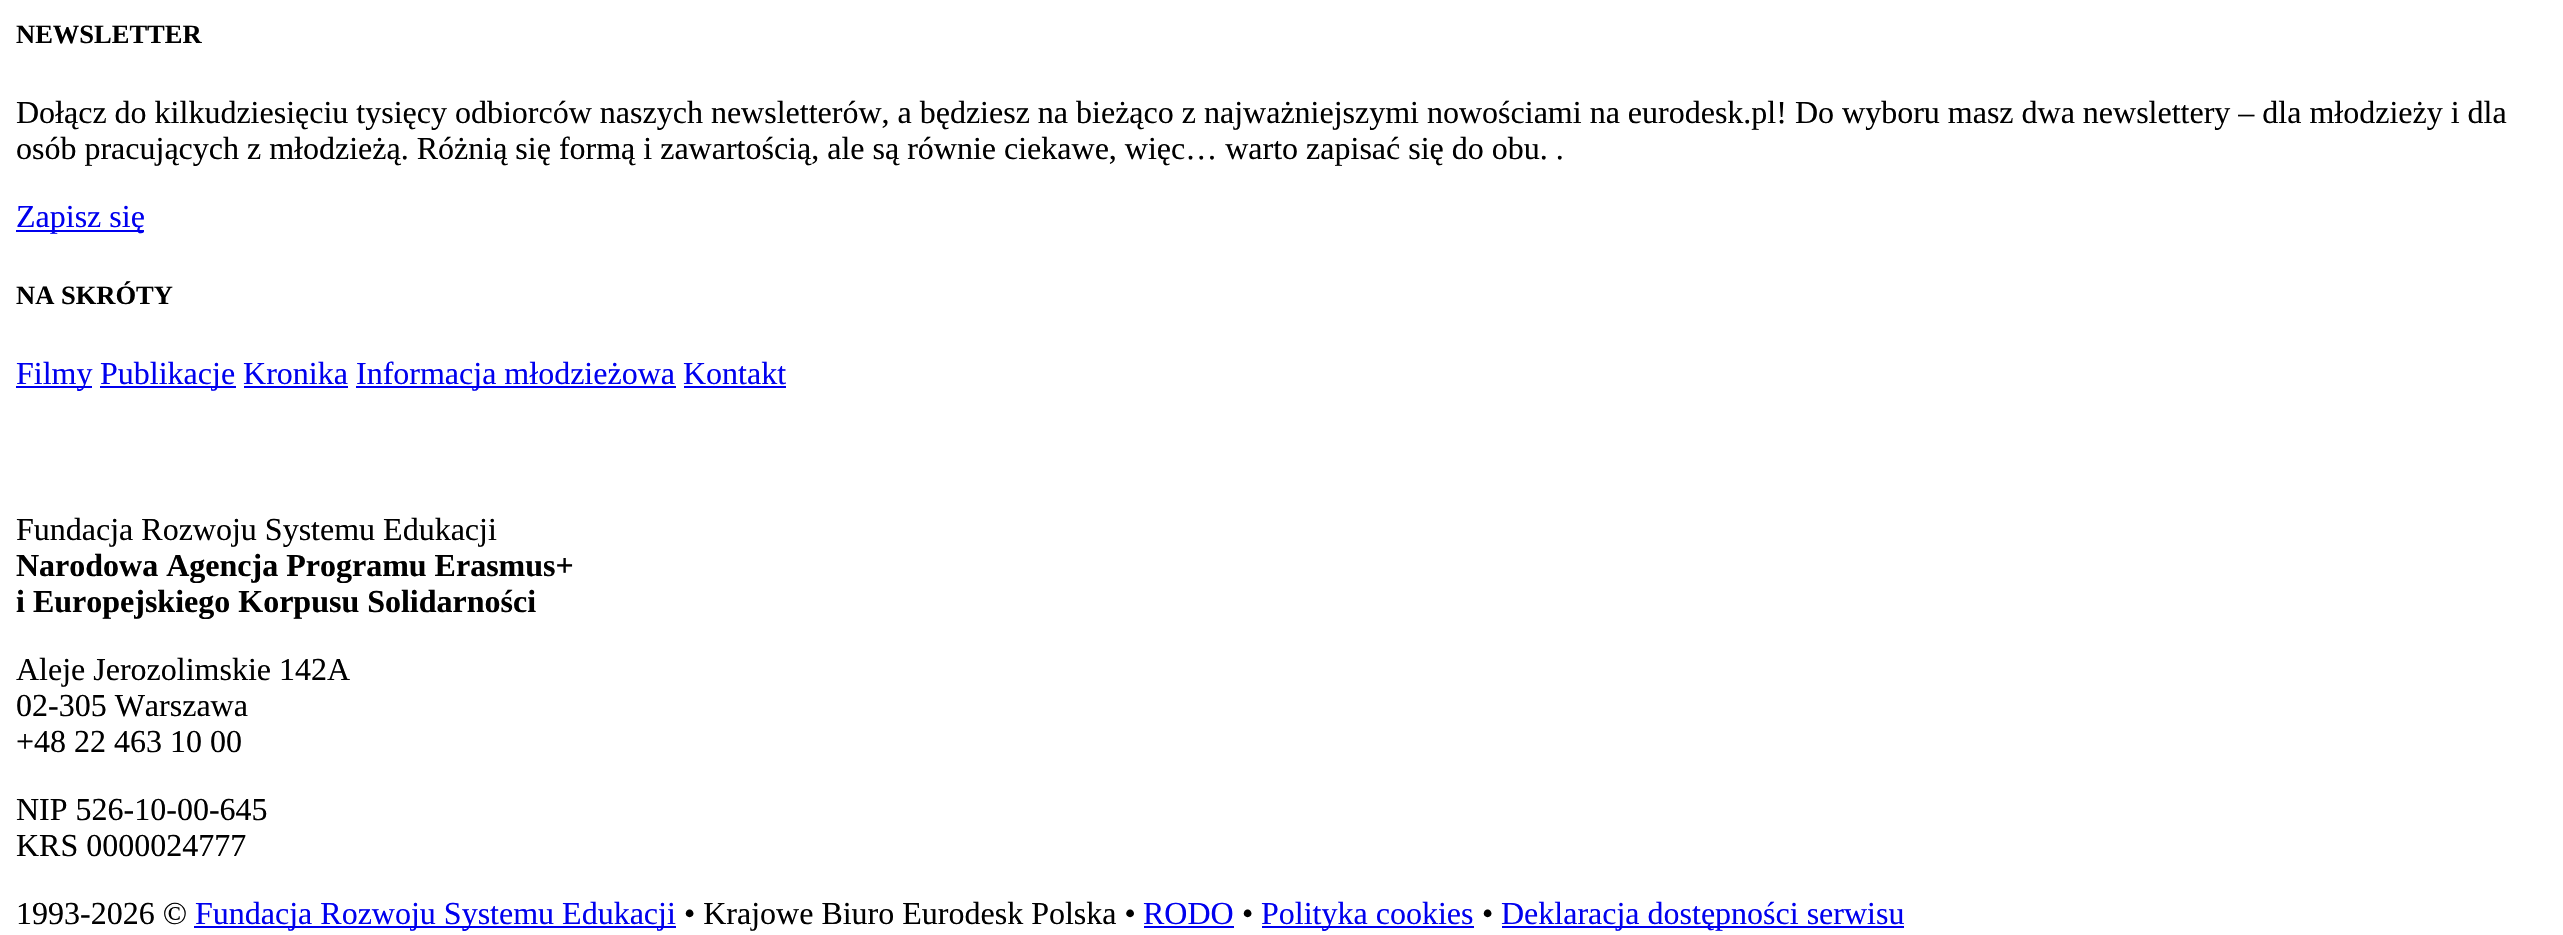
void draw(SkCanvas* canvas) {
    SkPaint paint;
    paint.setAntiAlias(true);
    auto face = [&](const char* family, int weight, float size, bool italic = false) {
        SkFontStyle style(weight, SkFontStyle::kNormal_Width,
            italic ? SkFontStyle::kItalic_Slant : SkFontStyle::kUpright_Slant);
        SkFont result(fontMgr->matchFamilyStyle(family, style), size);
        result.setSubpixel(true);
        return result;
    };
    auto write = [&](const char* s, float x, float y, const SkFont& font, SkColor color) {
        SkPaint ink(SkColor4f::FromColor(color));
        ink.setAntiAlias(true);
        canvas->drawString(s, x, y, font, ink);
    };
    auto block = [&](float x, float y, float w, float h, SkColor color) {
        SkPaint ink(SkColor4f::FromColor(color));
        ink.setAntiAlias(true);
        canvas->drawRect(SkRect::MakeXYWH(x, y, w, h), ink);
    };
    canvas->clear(SK_ColorWHITE);
    auto kFont1 = face("Liberation Serif", 700, 26.5f);
    write("NEWSLETTER", 16, 43, kFont1, SK_ColorBLACK);
    auto kFont2 = face("Liberation Serif", 400, 32);
    write("Dołącz do kilkudziesięciu tysięcy odbiorców naszych newsletterów, a będziesz na bieżąco z najważniejszymi nowościami na eurodesk.pl! Do wyboru masz dwa newslettery – dla młodzieży i dla", 16, 123, kFont2, SK_ColorBLACK);
    write("osób pracujących z młodzieżą. Różnią się formą i zawartością, ale są równie ciekawe, więc… warto zapisać się do obu. .", 16, 159, kFont2, SK_ColorBLACK);
    block(16, 230, 128, 2, SkColorSetRGB(0, 0, 238));
    write("Zapisz się", 16, 227, kFont2, SkColorSetRGB(0, 0, 238));
    write("NA SKRÓTY", 16, 304, kFont1, SK_ColorBLACK);
    block(16, 386, 76, 2, SkColorSetRGB(0, 0, 238));
    write("Filmy", 16, 384, kFont2, SkColorSetRGB(0, 0, 238));
    block(100, 386, 136, 2, SkColorSetRGB(0, 0, 238));
    write("Publikacje Kronika", 100, 384, kFont2, SkColorSetRGB(0, 0, 238));
    block(356, 386, 320, 2, SkColorSetRGB(0, 0, 238));
    write("Informacja młodzieżowa Kontakt", 356, 384, kFont2, SkColorSetRGB(0, 0, 238));
    block(244, 386, 104, 2, SkColorSetRGB(0, 0, 238));
    block(684, 386, 102, 2, SkColorSetRGB(0, 0, 238));
    write("Fundacja Rozwoju Systemu Edukacji", 16, 540, kFont2, SK_ColorBLACK);
    auto kFont3 = face("Liberation Serif", 700, 32);
    write("Narodowa Agencja Programu Erasmus+", 16, 576, kFont3, SK_ColorBLACK);
    write("i Europejskiego Korpusu Solidarności", 16, 612, kFont3, SK_ColorBLACK);
    write("Aleje Jerozolimskie 142A", 16, 680, kFont2, SK_ColorBLACK);
    write("02-305 Warszawa", 16, 716, kFont2, SK_ColorBLACK);
    write("+48 22 463 10 00", 16, 752, kFont2, SK_ColorBLACK);
    write("NIP 526-10-00-645", 16, 820, kFont2, SK_ColorBLACK);
    write("KRS 0000024777", 16, 856, kFont2, SK_ColorBLACK);
    write("1993-2026 ©", 16, 924, kFont2, SK_ColorBLACK);
    block(194, 926, 482, 2, SkColorSetRGB(0, 0, 238));
    write("Fundacja Rozwoju Systemu Edukacji", 195, 924, kFont2, SkColorSetRGB(0, 0, 238));
    write("• Krajowe Biuro Eurodesk Polska •", 684, 924, kFont2, SK_ColorBLACK);
    write("RODO", 1143, 924, kFont2, SkColorSetRGB(0, 0, 238));
    block(1144, 926, 90, 2, SkColorSetRGB(0, 0, 238));
    write("•", 1242, 924, kFont2, SK_ColorBLACK);
    block(1262, 926, 212, 2, SkColorSetRGB(0, 0, 238));
    write("Polityka cookies", 1261, 924, kFont2, SkColorSetRGB(0, 0, 238));
    write("•", 1482, 924, kFont2, SK_ColorBLACK);
    block(1502, 926, 402, 2, SkColorSetRGB(0, 0, 238));
    write("Deklaracja dostępności serwisu", 1501, 924, kFont2, SkColorSetRGB(0, 0, 238));
}
